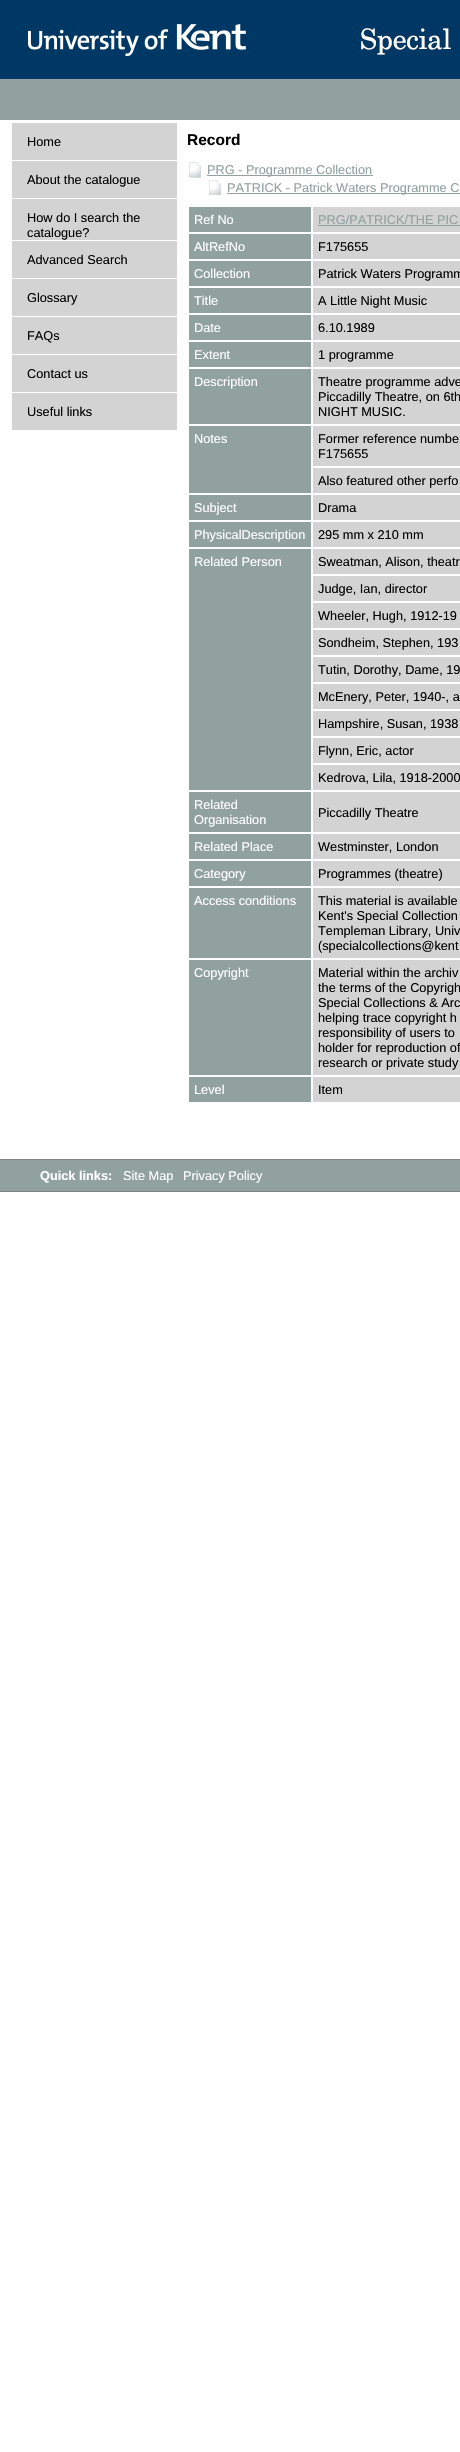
void draw(SkCanvas* canvas) {
    SkPaint paint;
    paint.setAntiAlias(true);
    auto face = [&](const char* family, int weight, float size, bool italic = false) {
        SkFontStyle style(weight, SkFontStyle::kNormal_Width,
            italic ? SkFontStyle::kItalic_Slant : SkFontStyle::kUpright_Slant);
        SkFont result(fontMgr->matchFamilyStyle(family, style), size);
        result.setSubpixel(true);
        return result;
    };
    auto write = [&](const char* s, float x, float y, const SkFont& font, SkColor color) {
        SkPaint ink(SkColor4f::FromColor(color));
        ink.setAntiAlias(true);
        canvas->drawString(s, x, y, font, ink);
    };
    auto block = [&](float x, float y, float w, float h, SkColor color) {
        SkPaint ink(SkColor4f::FromColor(color));
        ink.setAntiAlias(true);
        canvas->drawRect(SkRect::MakeXYWH(x, y, w, h), ink);
    };
    auto paste = [&](const char* path, float x, float y, float w, float h) {
        auto image = SkImages::DeferredFromEncodedData(SkData::MakeFromFileName(path));
        canvas->drawImageRect(image, SkRect::MakeXYWH(x, y, w, h), SkSamplingOptions());
    };
    canvas->clear(SK_ColorWHITE);
    paste("pic1.png", 0, 0, 460, 79);
    block(0, 79, 460, 41, SkColorSetRGB(145, 161, 157));
    block(12, 123, 165, 37, SkColorSetRGB(211, 211, 211));
    auto kFont1 = face("Liberation Sans", 400, 12.75f);
    write("Home", 27, 146, kFont1, SK_ColorBLACK);
    block(12, 161, 165, 37, SkColorSetRGB(211, 211, 211));
    write("About the catalogue", 27, 184, kFont1, SK_ColorBLACK);
    block(12, 199, 165, 41, SkColorSetRGB(211, 211, 211));
    write("How do I search the", 27, 222, kFont1, SK_ColorBLACK);
    write("catalogue?", 27, 237, kFont1, SK_ColorBLACK);
    block(12, 241, 165, 37, SkColorSetRGB(211, 211, 211));
    write("Advanced Search", 27, 264, kFont1, SK_ColorBLACK);
    block(12, 279, 165, 37, SkColorSetRGB(211, 211, 211));
    write("Glossary", 27, 302, kFont1, SK_ColorBLACK);
    block(12, 317, 165, 37, SkColorSetRGB(211, 211, 211));
    write("FAQs", 27, 340, kFont1, SK_ColorBLACK);
    block(12, 355, 165, 37, SkColorSetRGB(211, 211, 211));
    write("Contact us", 27, 378, kFont1, SK_ColorBLACK);
    block(12, 393, 165, 37, SkColorSetRGB(211, 211, 211));
    write("Useful links", 27, 416, kFont1, SK_ColorBLACK);
    auto kFont2 = face("Liberation Sans", 700, 15.5f);
    write("Record", 187, 145, kFont2, SK_ColorBLACK);
    paste("pic2.png", 189, 162, 12, 16);
    block(207, 175, 166, 1, SkColorSetRGB(145, 161, 157));
    write("PRG - Programme Collection", 207, 174, kFont1, SkColorSetRGB(145, 161, 157));
    paste("pic3.png", 209, 180, 12, 15);
    block(227, 193, 233, 1, SkColorSetRGB(145, 161, 157));
    write("PATRICK - Patrick Waters Programme C", 227, 192, kFont1, SkColorSetRGB(145, 161, 157));
    block(189, 207, 122, 25, SkColorSetRGB(145, 161, 157));
    write("Ref No", 194, 224, kFont1, SK_ColorWHITE);
    block(313, 207, 147, 25, SkColorSetRGB(211, 211, 211));
    write("PRG/PATRICK/THE PIC", 318, 224, kFont1, SkColorSetRGB(145, 161, 157));
    block(318, 225, 142, 1, SkColorSetRGB(145, 161, 157));
    block(189, 234, 122, 25, SkColorSetRGB(145, 161, 157));
    write("AltRefNo", 194, 251, kFont1, SK_ColorWHITE);
    block(313, 234, 147, 25, SkColorSetRGB(211, 211, 211));
    write("F175655", 318, 251, kFont1, SK_ColorBLACK);
    block(189, 261, 122, 25, SkColorSetRGB(145, 161, 157));
    write("Collection", 194, 278, kFont1, SK_ColorWHITE);
    block(313, 261, 147, 25, SkColorSetRGB(211, 211, 211));
    write("Patrick Waters Programm", 318, 278, kFont1, SK_ColorBLACK);
    block(189, 288, 122, 25, SkColorSetRGB(145, 161, 157));
    write("Title", 194, 305, kFont1, SK_ColorWHITE);
    block(313, 288, 147, 25, SkColorSetRGB(211, 211, 211));
    write("A Little Night Music", 318, 305, kFont1, SK_ColorBLACK);
    block(189, 315, 122, 25, SkColorSetRGB(145, 161, 157));
    write("Date", 194, 332, kFont1, SK_ColorWHITE);
    block(313, 315, 147, 25, SkColorSetRGB(211, 211, 211));
    write("6.10.1989", 318, 332, kFont1, SK_ColorBLACK);
    block(189, 342, 122, 25, SkColorSetRGB(145, 161, 157));
    write("Extent", 194, 359, kFont1, SK_ColorWHITE);
    block(313, 342, 147, 25, SkColorSetRGB(211, 211, 211));
    write("1 programme", 318, 359, kFont1, SK_ColorBLACK);
    block(189, 369, 122, 55, SkColorSetRGB(145, 161, 157));
    write("Description", 194, 386, kFont1, SK_ColorWHITE);
    block(313, 369, 147, 55, SkColorSetRGB(211, 211, 211));
    write("Theatre programme adve", 318, 386, kFont1, SK_ColorBLACK);
    write("Piccadilly Theatre, on 6th", 318, 401, kFont1, SK_ColorBLACK);
    write("NIGHT MUSIC.", 318, 416, kFont1, SK_ColorBLACK);
    block(189, 426, 122, 67, SkColorSetRGB(145, 161, 157));
    write("Notes", 194, 443, kFont1, SK_ColorWHITE);
    block(313, 426, 147, 40, SkColorSetRGB(211, 211, 211));
    write("Former reference numbe", 318, 443, kFont1, SK_ColorBLACK);
    write("F175655", 318, 458, kFont1, SK_ColorBLACK);
    block(313, 468, 147, 25, SkColorSetRGB(211, 211, 211));
    write("Also featured other perfo", 318, 485, kFont1, SK_ColorBLACK);
    block(189, 495, 122, 25, SkColorSetRGB(145, 161, 157));
    write("Subject", 194, 512, kFont1, SK_ColorWHITE);
    block(313, 495, 147, 25, SkColorSetRGB(211, 211, 211));
    write("Drama", 318, 512, kFont1, SK_ColorBLACK);
    block(189, 522, 122, 25, SkColorSetRGB(145, 161, 157));
    write("PhysicalDescription", 194, 539, kFont1, SK_ColorWHITE);
    block(313, 522, 147, 25, SkColorSetRGB(211, 211, 211));
    write("295 mm x 210 mm", 318, 539, kFont1, SK_ColorBLACK);
    block(189, 549, 122, 241, SkColorSetRGB(145, 161, 157));
    write("Related Person", 194, 566, kFont1, SK_ColorWHITE);
    block(313, 549, 147, 25, SkColorSetRGB(211, 211, 211));
    write("Sweatman, Alison, theatr", 318, 566, kFont1, SK_ColorBLACK);
    block(313, 576, 147, 25, SkColorSetRGB(211, 211, 211));
    write("Judge, Ian, director", 318, 593, kFont1, SK_ColorBLACK);
    block(313, 603, 147, 25, SkColorSetRGB(211, 211, 211));
    write("Wheeler, Hugh, 1912-19", 318, 620, kFont1, SK_ColorBLACK);
    block(313, 630, 147, 25, SkColorSetRGB(211, 211, 211));
    write("Sondheim, Stephen, 193", 318, 647, kFont1, SK_ColorBLACK);
    block(313, 657, 147, 25, SkColorSetRGB(211, 211, 211));
    write("Tutin, Dorothy, Dame, 19", 318, 674, kFont1, SK_ColorBLACK);
    block(313, 684, 147, 25, SkColorSetRGB(211, 211, 211));
    write("McEnery, Peter, 1940-, a", 318, 701, kFont1, SK_ColorBLACK);
    block(313, 711, 147, 25, SkColorSetRGB(211, 211, 211));
    write("Hampshire, Susan, 1938", 318, 728, kFont1, SK_ColorBLACK);
    block(313, 738, 147, 25, SkColorSetRGB(211, 211, 211));
    write("Flynn, Eric, actor", 318, 755, kFont1, SK_ColorBLACK);
    block(313, 765, 147, 25, SkColorSetRGB(211, 211, 211));
    write("Kedrova, Lila, 1918-2000", 318, 782, kFont1, SK_ColorBLACK);
    block(189, 792, 122, 40, SkColorSetRGB(145, 161, 157));
    write("Related", 194, 809, kFont1, SK_ColorWHITE);
    write("Organisation", 194, 824, kFont1, SK_ColorWHITE);
    block(313, 792, 147, 40, SkColorSetRGB(211, 211, 211));
    write("Piccadilly Theatre", 318, 817, kFont1, SK_ColorBLACK);
    block(189, 834, 122, 25, SkColorSetRGB(145, 161, 157));
    write("Related Place", 194, 851, kFont1, SK_ColorWHITE);
    block(313, 834, 147, 25, SkColorSetRGB(211, 211, 211));
    write("Westminster, London", 318, 851, kFont1, SK_ColorBLACK);
    block(189, 861, 122, 25, SkColorSetRGB(145, 161, 157));
    write("Category", 194, 878, kFont1, SK_ColorWHITE);
    block(313, 861, 147, 25, SkColorSetRGB(211, 211, 211));
    write("Programmes (theatre)", 318, 878, kFont1, SK_ColorBLACK);
    block(189, 888, 122, 70, SkColorSetRGB(145, 161, 157));
    write("Access conditions", 194, 905, kFont1, SK_ColorWHITE);
    block(313, 888, 147, 70, SkColorSetRGB(211, 211, 211));
    write("This material is available", 318, 905, kFont1, SK_ColorBLACK);
    write("Kent's Special Collection", 318, 920, kFont1, SK_ColorBLACK);
    write("Templeman Library, Univ", 318, 935, kFont1, SK_ColorBLACK);
    write("(specialcollections@kent", 318, 950, kFont1, SK_ColorBLACK);
    block(189, 960, 122, 115, SkColorSetRGB(145, 161, 157));
    write("Copyright", 194, 977, kFont1, SK_ColorWHITE);
    block(313, 960, 147, 115, SkColorSetRGB(211, 211, 211));
    write("Material within the archiv", 318, 977, kFont1, SK_ColorBLACK);
    write("the terms of the Copyrigh", 318, 992, kFont1, SK_ColorBLACK);
    write("Special Collections & Arc", 318, 1007, kFont1, SK_ColorBLACK);
    write("helping trace copyright h", 318, 1022, kFont1, SK_ColorBLACK);
    write("responsibility of users to", 318, 1037, kFont1, SK_ColorBLACK);
    write("holder for reproduction of", 318, 1052, kFont1, SK_ColorBLACK);
    write("research or private study", 318, 1067, kFont1, SK_ColorBLACK);
    block(189, 1077, 122, 25, SkColorSetRGB(145, 161, 157));
    write("Level", 194, 1094, kFont1, SK_ColorWHITE);
    block(313, 1077, 147, 25, SkColorSetRGB(211, 211, 211));
    write("Item", 318, 1094, kFont1, SK_ColorBLACK);
    block(0, 1160, 460, 31, SkColorSetRGB(145, 161, 157));
    block(0, 1159, 460, 1, SkColorSetRGB(128, 128, 128));
    block(0, 1191, 460, 1, SkColorSetRGB(128, 128, 128));
    auto kFont3 = face("Liberation Sans", 700, 12.75f);
    write("Quick links:", 40, 1180, kFont3, SK_ColorWHITE);
    write("Site Map", 123, 1180, kFont1, SK_ColorWHITE);
    write("Privacy Policy", 183, 1180, kFont1, SK_ColorWHITE);
}
